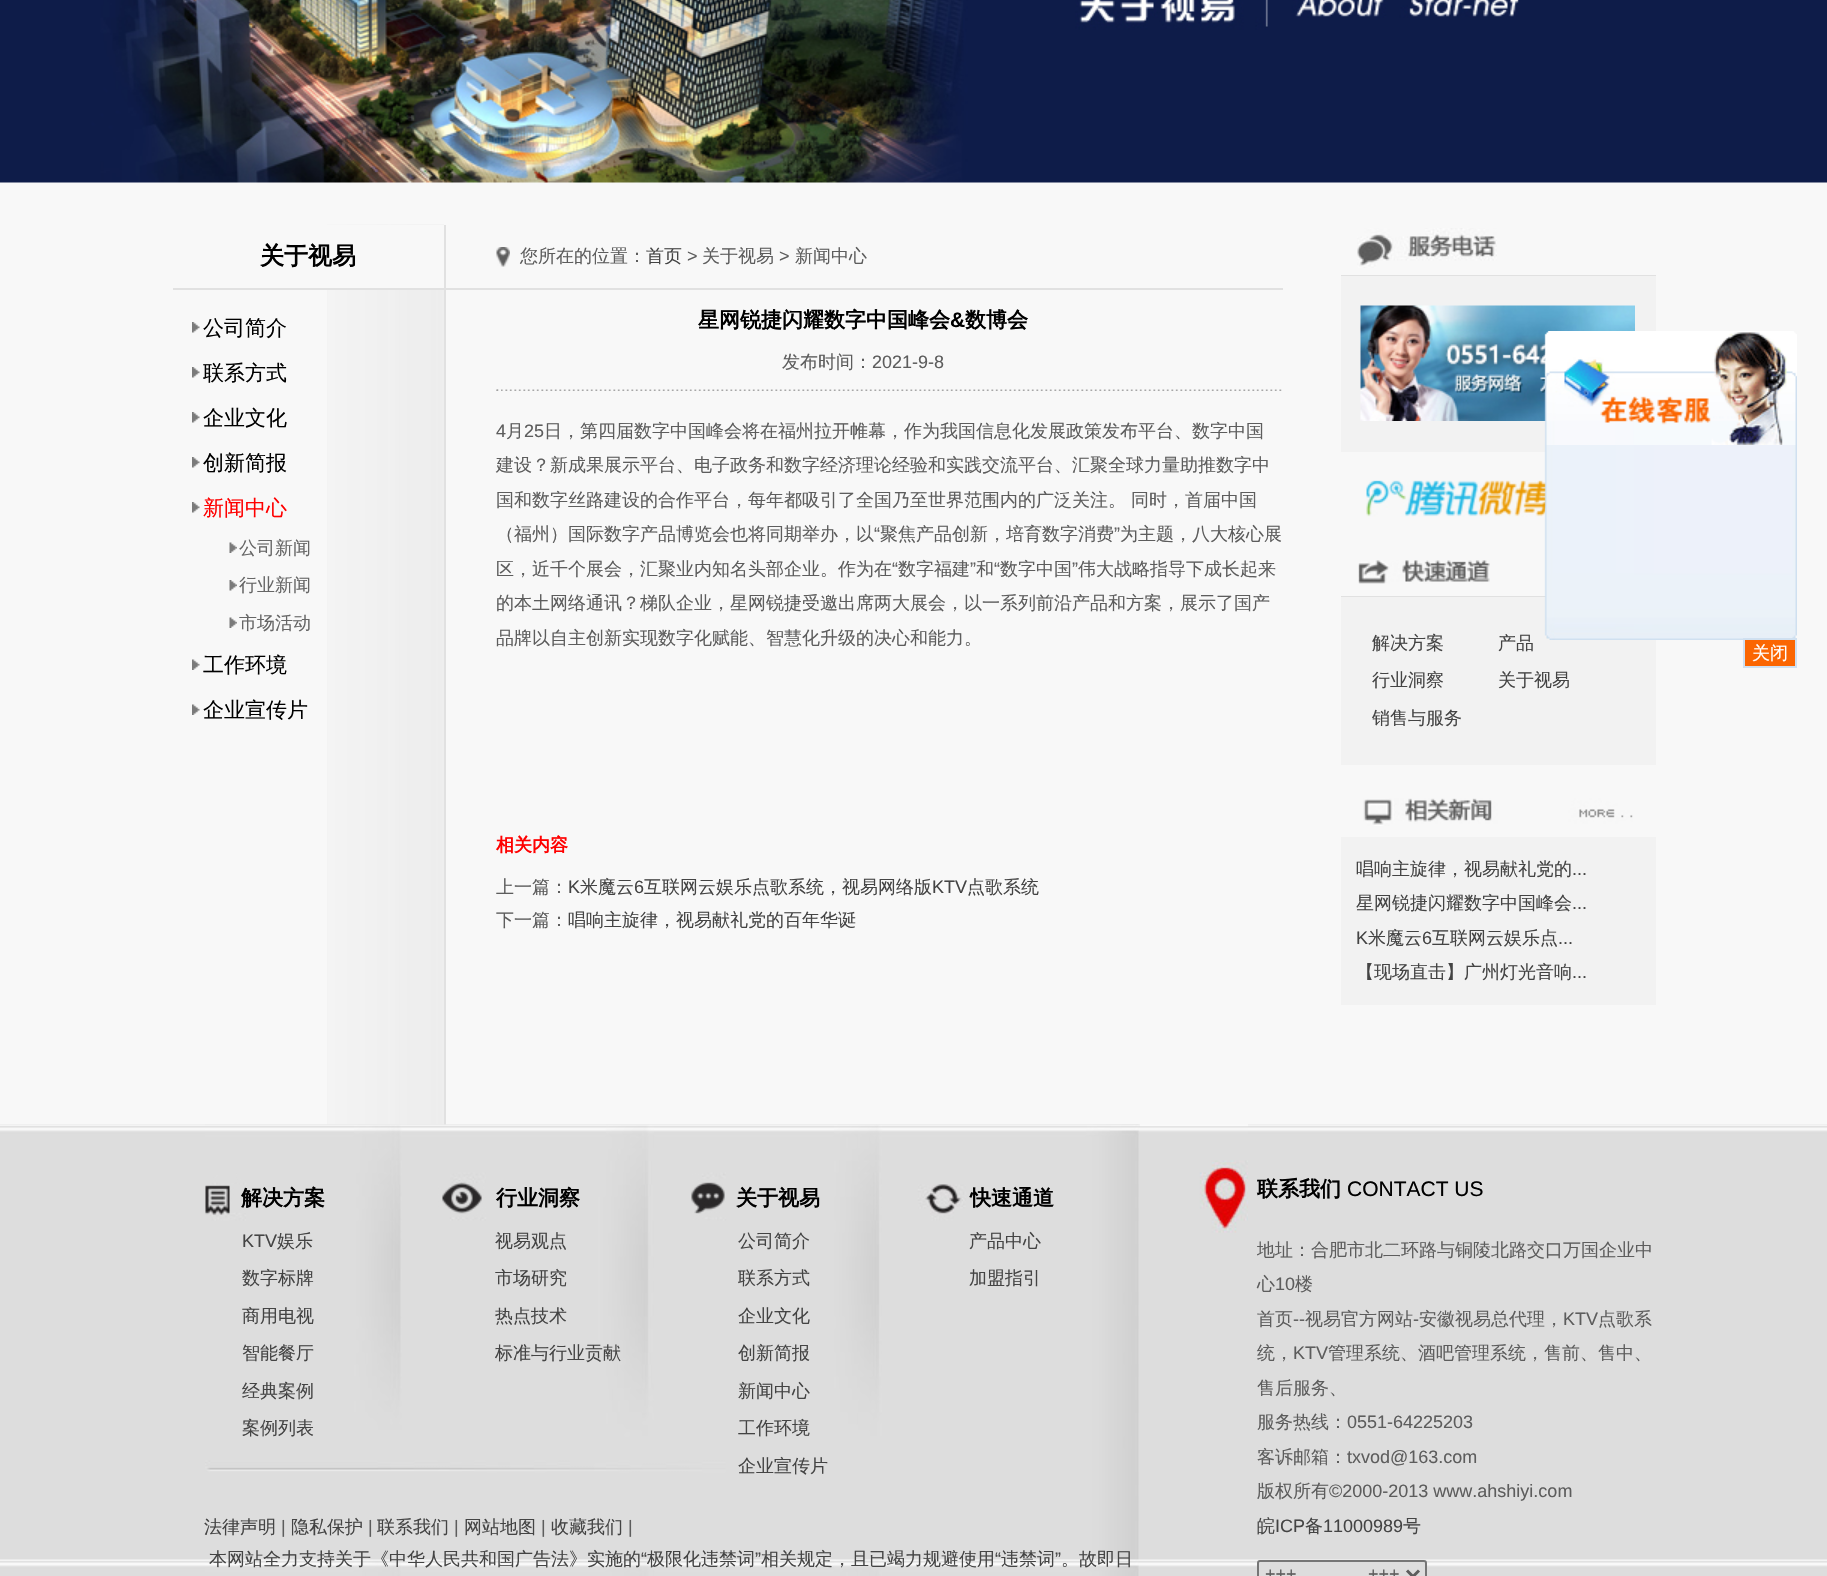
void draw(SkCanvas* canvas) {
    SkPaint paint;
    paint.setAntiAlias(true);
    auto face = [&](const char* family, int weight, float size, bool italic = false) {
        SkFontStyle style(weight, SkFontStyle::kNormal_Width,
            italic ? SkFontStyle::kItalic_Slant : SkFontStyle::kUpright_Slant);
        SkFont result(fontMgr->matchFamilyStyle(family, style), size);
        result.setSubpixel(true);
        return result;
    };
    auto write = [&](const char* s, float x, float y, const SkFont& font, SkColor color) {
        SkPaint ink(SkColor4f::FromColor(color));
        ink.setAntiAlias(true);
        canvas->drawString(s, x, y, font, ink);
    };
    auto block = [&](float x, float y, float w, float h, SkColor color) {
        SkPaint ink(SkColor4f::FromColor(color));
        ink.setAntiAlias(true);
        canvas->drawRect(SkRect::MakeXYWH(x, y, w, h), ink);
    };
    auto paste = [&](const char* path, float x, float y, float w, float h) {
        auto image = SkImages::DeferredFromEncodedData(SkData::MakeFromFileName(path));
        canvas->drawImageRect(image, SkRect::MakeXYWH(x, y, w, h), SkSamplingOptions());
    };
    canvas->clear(SkColorSetRGB(248, 248, 248));
    paste("pic1.png", 0, 0, 1827, 183);
    paste("pic2.png", 327, 224, 117, 901);
    block(327, 225, 117, 63, SkColorSetRGB(248, 248, 248));
    auto kFont1 = face("WenQuanYi Zen Hei", 700, 24);
    write("关于视易", 260, 264, kFont1, SK_ColorBLACK);
    block(173, 288, 271, 2, SkColorSetRGB(225, 225, 225));
    paste("pic3.png", 192, 322, 8, 11);
    auto kFont2 = face("WenQuanYi Zen Hei", 500, 21);
    write("公司简介", 203, 335, kFont2, SK_ColorBLACK);
    paste("pic3.png", 192, 367, 8, 11);
    write("联系方式", 203, 380, kFont2, SK_ColorBLACK);
    paste("pic3.png", 192, 412, 8, 11);
    write("企业文化", 203, 425, kFont2, SK_ColorBLACK);
    paste("pic3.png", 192, 457, 8, 11);
    write("创新简报", 203, 470, kFont2, SK_ColorBLACK);
    paste("pic3.png", 192, 502, 8, 11);
    write("新闻中心", 203, 515, kFont2, SkColorSetRGB(255, 0, 0));
    paste("pic4.png", 229, 542, 8, 11);
    auto kFont3 = face("WenQuanYi Zen Hei", 500, 18);
    write("公司新闻", 239, 554, kFont3, SkColorSetRGB(102, 102, 102));
    paste("pic5.png", 229, 580, 8, 11);
    write("行业新闻", 239, 591, kFont3, SkColorSetRGB(102, 102, 102));
    paste("pic4.png", 229, 617, 8, 11);
    write("市场活动", 239, 629, kFont3, SkColorSetRGB(102, 102, 102));
    paste("pic6.png", 192, 659, 8, 11);
    write("工作环境", 203, 672, kFont2, SK_ColorBLACK);
    paste("pic6.png", 192, 704, 8, 11);
    write("企业宣传片", 203, 717, kFont2, SK_ColorBLACK);
    block(444, 225, 2, 900, SkColorSetRGB(225, 225, 225));
    paste("pic7.png", 496, 247, 14, 20);
    write("您所在的位置：", 520, 262, kFont3, SkColorSetRGB(93, 93, 93));
    write("首页", 646, 262, kFont3, SkColorSetRGB(68, 68, 68));
    auto kFont4 = face("Liberation Sans", 400, 18);
    write(">", 687, 262, kFont4, SkColorSetRGB(93, 93, 93));
    write("关于视易", 702, 262, kFont3, SkColorSetRGB(93, 93, 93));
    write(">", 779, 262, kFont4, SkColorSetRGB(93, 93, 93));
    write("新闻中心", 795, 262, kFont3, SkColorSetRGB(93, 93, 93));
    block(446, 288, 837, 2, SkColorSetRGB(225, 225, 225));
    auto kFont5 = face("WenQuanYi Zen Hei", 700, 21);
    write("星网锐捷闪耀数字中国峰会", 698, 327, kFont5, SK_ColorBLACK);
    auto kFont6 = face("Liberation Sans", 700, 21);
    write("&", 950, 327, kFont6, SK_ColorBLACK);
    write("数博会", 965, 327, kFont5, SK_ColorBLACK);
    write("发布时间：", 782, 368, kFont3, SkColorSetRGB(93, 93, 93));
    write("2021-9-8", 872, 368, kFont4, SkColorSetRGB(93, 93, 93));
    paste("pic8.png", 496, 389, 786, 2);
    paste("pic9.png", 496, 389, 5, 2);
    write("4", 496, 437, kFont4, SkColorSetRGB(93, 93, 93));
    write("月", 506, 437, kFont3, SkColorSetRGB(93, 93, 93));
    write("25", 524, 437, kFont4, SkColorSetRGB(93, 93, 93));
    write("日，第四届数字中国峰会将在福州拉开帷幕，作为我国信息化发展政策发布平台、数字中国", 544, 437, kFont3, SkColorSetRGB(93, 93, 93));
    write("建设？新成果展示平台、电子政务和数字经济理论经验和实践交流平台、汇聚全球力量助推数字中", 496, 471, kFont3, SkColorSetRGB(93, 93, 93));
    write("国和数字丝路建设的合作平台，每年都吸引了全国乃至世界范围内的广泛关注。", 496, 506, kFont3, SkColorSetRGB(93, 93, 93));
    write("同时，首届中国", 1131, 506, kFont3, SkColorSetRGB(93, 93, 93));
    write("（福州）国际数字产品博览会也将同期举办，以", 496, 540, kFont3, SkColorSetRGB(93, 93, 93));
    write("“", 874, 540, kFont4, SkColorSetRGB(93, 93, 93));
    write("聚焦产品创新，培育数字消费", 880, 540, kFont3, SkColorSetRGB(93, 93, 93));
    write("”", 1114, 540, kFont4, SkColorSetRGB(93, 93, 93));
    write("为主题，八大核心展", 1120, 540, kFont3, SkColorSetRGB(93, 93, 93));
    write("区，近千个展会，汇聚业内知名头部企业。作为在", 496, 575, kFont3, SkColorSetRGB(93, 93, 93));
    write("“", 892, 575, kFont4, SkColorSetRGB(93, 93, 93));
    write("数字福建", 898, 575, kFont3, SkColorSetRGB(93, 93, 93));
    write("”", 970, 575, kFont4, SkColorSetRGB(93, 93, 93));
    write("和", 976, 575, kFont3, SkColorSetRGB(93, 93, 93));
    write("“", 994, 575, kFont4, SkColorSetRGB(93, 93, 93));
    write("数字中国", 1000, 575, kFont3, SkColorSetRGB(93, 93, 93));
    write("”", 1072, 575, kFont4, SkColorSetRGB(93, 93, 93));
    write("伟大战略指导下成长起来", 1078, 575, kFont3, SkColorSetRGB(93, 93, 93));
    write("的本土网络通讯？梯队企业，星网锐捷受邀出席两大展会，以一系列前沿产品和方案，展示了国产", 496, 609, kFont3, SkColorSetRGB(93, 93, 93));
    write("品牌以自主创新实现数字化赋能、智慧化升级的决心和能力。", 496, 644, kFont3, SkColorSetRGB(93, 93, 93));
    auto kFont7 = face("WenQuanYi Zen Hei", 700, 18);
    write("相关内容", 496, 851, kFont7, SkColorSetRGB(255, 0, 0));
    write("上一篇：", 496, 893, kFont3, SkColorSetRGB(93, 93, 93));
    write("K", 568, 893, kFont4, SkColorSetRGB(68, 68, 68));
    write("米魔云", 580, 893, kFont3, SkColorSetRGB(68, 68, 68));
    write("6", 634, 893, kFont4, SkColorSetRGB(68, 68, 68));
    write("互联网云娱乐点歌系统，视易网络版", 644, 893, kFont3, SkColorSetRGB(68, 68, 68));
    write("KTV", 932, 893, kFont4, SkColorSetRGB(68, 68, 68));
    write("点歌系统", 967, 893, kFont3, SkColorSetRGB(68, 68, 68));
    write("下一篇：", 496, 926, kFont3, SkColorSetRGB(93, 93, 93));
    write("唱响主旋律，视易献礼党的百年华诞", 568, 926, kFont3, SkColorSetRGB(68, 68, 68));
    paste("pic10.png", 1357, 228, 140, 40);
    block(1341, 275, 315, 1, SkColorSetRGB(225, 225, 225));
    block(1341, 276, 315, 176, SkColorSetRGB(242, 242, 242));
    paste("pic11.png", 1360, 305, 275, 116);
    paste("pic12.png", 1366, 480, 180, 37);
    paste("pic13.png", 1358, 560, 132, 24);
    block(1341, 596, 205, 1, SkColorSetRGB(225, 225, 225));
    block(1341, 597, 315, 168, SkColorSetRGB(242, 242, 242));
    write("解决方案", 1372, 649, kFont3, SkColorSetRGB(68, 68, 68));
    write("产品", 1498, 649, kFont3, SkColorSetRGB(68, 68, 68));
    write("行业洞察", 1372, 686, kFont3, SkColorSetRGB(68, 68, 68));
    write("关于视易", 1498, 686, kFont3, SkColorSetRGB(68, 68, 68));
    write("销售与服务", 1372, 724, kFont3, SkColorSetRGB(68, 68, 68));
    paste("pic14.png", 1363, 798, 270, 28);
    block(1341, 837, 315, 168, SkColorSetRGB(242, 242, 242));
    write("唱响主旋律，视易献礼党的", 1356, 875, kFont3, SkColorSetRGB(68, 68, 68));
    write("...", 1572, 875, kFont4, SkColorSetRGB(68, 68, 68));
    write("星网锐捷闪耀数字中国峰会", 1356, 909, kFont3, SkColorSetRGB(68, 68, 68));
    write("...", 1572, 909, kFont4, SkColorSetRGB(68, 68, 68));
    write("K", 1356, 944, kFont4, SkColorSetRGB(68, 68, 68));
    write("米魔云", 1368, 944, kFont3, SkColorSetRGB(68, 68, 68));
    write("6", 1422, 944, kFont4, SkColorSetRGB(68, 68, 68));
    write("互联网云娱乐点", 1432, 944, kFont3, SkColorSetRGB(68, 68, 68));
    write("...", 1558, 944, kFont4, SkColorSetRGB(68, 68, 68));
    write("【现场直击】广州灯光音响", 1356, 978, kFont3, SkColorSetRGB(68, 68, 68));
    write("...", 1572, 978, kFont4, SkColorSetRGB(68, 68, 68));
    paste("pic15.png", 1544, 331, 253, 114);
    paste("pic16.png", 1544, 445, 253, 195);
    paint.setColor(SkColorSetRGB(251, 102, 2));
    canvas->drawRect(SkRect::MakeXYWH(1744, 639, 52, 28), paint);
    paint.setStyle(SkPaint::kStroke_Style);
    paint.setStrokeWidth(2);
    paint.setColor(SkColorSetRGB(208, 224, 240));
    canvas->drawRect(SkRect::MakeXYWH(1744, 639, 52, 28), paint);
    write("关闭", 1752, 659, kFont3, SK_ColorWHITE);
    paste("pic17.png", 0, 1124, 1827, 452);
    paste("pic18.png", 205, 1124, 934, 452);
    write("解决方案", 241, 1205, kFont5, SK_ColorBLACK);
    write("KTV", 242, 1247, kFont4, SkColorSetRGB(68, 68, 68));
    write("娱乐", 277, 1247, kFont3, SkColorSetRGB(68, 68, 68));
    write("数字标牌", 242, 1284, kFont3, SkColorSetRGB(68, 68, 68));
    write("商用电视", 242, 1322, kFont3, SkColorSetRGB(68, 68, 68));
    write("智能餐厅", 242, 1359, kFont3, SkColorSetRGB(68, 68, 68));
    write("经典案例", 242, 1397, kFont3, SkColorSetRGB(68, 68, 68));
    write("案例列表", 242, 1434, kFont3, SkColorSetRGB(68, 68, 68));
    write("行业洞察", 496, 1205, kFont5, SK_ColorBLACK);
    write("视易观点", 495, 1247, kFont3, SkColorSetRGB(68, 68, 68));
    write("市场研究", 495, 1284, kFont3, SkColorSetRGB(68, 68, 68));
    write("热点技术", 495, 1322, kFont3, SkColorSetRGB(68, 68, 68));
    write("标准与行业贡献", 495, 1359, kFont3, SkColorSetRGB(68, 68, 68));
    write("关于视易", 736, 1205, kFont5, SK_ColorBLACK);
    write("公司简介", 738, 1247, kFont3, SkColorSetRGB(68, 68, 68));
    write("联系方式", 738, 1284, kFont3, SkColorSetRGB(68, 68, 68));
    write("企业文化", 738, 1322, kFont3, SkColorSetRGB(68, 68, 68));
    write("创新简报", 738, 1359, kFont3, SkColorSetRGB(68, 68, 68));
    write("新闻中心", 738, 1397, kFont3, SkColorSetRGB(68, 68, 68));
    write("工作环境", 738, 1434, kFont3, SkColorSetRGB(68, 68, 68));
    write("企业宣传片", 738, 1472, kFont3, SkColorSetRGB(68, 68, 68));
    write("快速通道", 970, 1205, kFont5, SK_ColorBLACK);
    write("产品中心", 969, 1247, kFont3, SkColorSetRGB(68, 68, 68));
    write("加盟指引", 969, 1284, kFont3, SkColorSetRGB(68, 68, 68));
    write("法律声明", 204, 1533, kFont3, SkColorSetRGB(68, 68, 68));
    write("|", 281, 1533, kFont4, SkColorSetRGB(93, 93, 93));
    write("隐私保护", 291, 1533, kFont3, SkColorSetRGB(68, 68, 68));
    write("|", 368, 1533, kFont4, SkColorSetRGB(93, 93, 93));
    write("联系我们", 377, 1533, kFont3, SkColorSetRGB(68, 68, 68));
    write("|", 454, 1533, kFont4, SkColorSetRGB(93, 93, 93));
    write("网站地图", 464, 1533, kFont3, SkColorSetRGB(68, 68, 68));
    write("|", 541, 1533, kFont4, SkColorSetRGB(93, 93, 93));
    write("收藏我们", 551, 1533, kFont3, SkColorSetRGB(68, 68, 68));
    write("|", 628, 1533, kFont4, SkColorSetRGB(93, 93, 93));
    write("本网站全力支持关于《中华人民共和国广告法》实施的", 209, 1565, kFont3, SkColorSetRGB(68, 68, 68));
    write("“", 641, 1565, kFont4, SkColorSetRGB(68, 68, 68));
    write("极限化违禁词", 647, 1565, kFont3, SkColorSetRGB(68, 68, 68));
    write("”", 755, 1565, kFont4, SkColorSetRGB(68, 68, 68));
    write("相关规定，且已竭力规避使用", 761, 1565, kFont3, SkColorSetRGB(68, 68, 68));
    write("“", 995, 1565, kFont4, SkColorSetRGB(68, 68, 68));
    write("违禁词", 1001, 1565, kFont3, SkColorSetRGB(68, 68, 68));
    write("”", 1055, 1565, kFont4, SkColorSetRGB(68, 68, 68));
    write("。故即日", 1061, 1565, kFont3, SkColorSetRGB(68, 68, 68));
    paste("pic19.png", 1140, 1124, 108, 109);
    write("联系我们", 1257, 1196, kFont5, SK_ColorBLACK);
    auto kFont8 = face("Liberation Sans", 400, 21);
    write("CONTACT US", 1347, 1196, kFont8, SK_ColorBLACK);
    write("地址：合肥市北二环路与铜陵北路交口万国企业中", 1257, 1256, kFont3, SkColorSetRGB(93, 93, 93));
    write("心", 1257, 1290, kFont3, SkColorSetRGB(93, 93, 93));
    write("10", 1275, 1290, kFont4, SkColorSetRGB(93, 93, 93));
    write("楼", 1295, 1290, kFont3, SkColorSetRGB(93, 93, 93));
    write("首页", 1257, 1325, kFont3, SkColorSetRGB(93, 93, 93));
    write("--", 1293, 1325, kFont4, SkColorSetRGB(93, 93, 93));
    write("视易官方网站", 1305, 1325, kFont3, SkColorSetRGB(93, 93, 93));
    write("-", 1413, 1325, kFont4, SkColorSetRGB(93, 93, 93));
    write("安徽视易总代理，", 1419, 1325, kFont3, SkColorSetRGB(93, 93, 93));
    write("KTV", 1563, 1325, kFont4, SkColorSetRGB(93, 93, 93));
    write("点歌系", 1598, 1325, kFont3, SkColorSetRGB(93, 93, 93));
    write("统，", 1257, 1359, kFont3, SkColorSetRGB(93, 93, 93));
    write("KTV", 1293, 1359, kFont4, SkColorSetRGB(93, 93, 93));
    write("管理系统、酒吧管理系统，售前、售中、", 1328, 1359, kFont3, SkColorSetRGB(93, 93, 93));
    write("售后服务、", 1257, 1394, kFont3, SkColorSetRGB(93, 93, 93));
    write("服务热线：", 1257, 1428, kFont3, SkColorSetRGB(93, 93, 93));
    write("0551-64225203", 1347, 1428, kFont4, SkColorSetRGB(93, 93, 93));
    write("客诉邮箱：", 1257, 1463, kFont3, SkColorSetRGB(93, 93, 93));
    write("txvod@163.com", 1347, 1463, kFont4, SkColorSetRGB(93, 93, 93));
    write("版权所有", 1257, 1497, kFont3, SkColorSetRGB(93, 93, 93));
    write("©2000-2013 www.ahshiyi.com", 1329, 1497, kFont4, SkColorSetRGB(93, 93, 93));
    write("皖", 1257, 1532, kFont3, SkColorSetRGB(68, 68, 68));
    write("ICP", 1275, 1532, kFont4, SkColorSetRGB(68, 68, 68));
    write("备", 1305, 1532, kFont3, SkColorSetRGB(68, 68, 68));
    write("11000989", 1323, 1532, kFont4, SkColorSetRGB(68, 68, 68));
    write("号", 1403, 1532, kFont3, SkColorSetRGB(68, 68, 68));
    paint.setStyle(SkPaint::kFill_Style);
    paint.setColor(SkColorSetRGB(221, 221, 221));
    canvas->drawRoundRect(SkRect::MakeXYWH(1258, 1561, 168, 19), 2, 2, paint);
    paint.setStyle(SkPaint::kStroke_Style);
    paint.setColor(SkColorSetRGB(118, 118, 118));
    canvas->drawRoundRect(SkRect::MakeXYWH(1258, 1561, 168, 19), 2, 2, paint);
    paint.setStrokeWidth(3);
    paint.setColor(SkColorSetRGB(93, 93, 93));
    canvas->drawPath(SkPathBuilder().moveTo(1407, 1570.5f).lineTo(1413, 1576.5f).lineTo(1419, 1570.5f).detach(), paint);
    write("+++", 1265, 1580, kFont4, SkColorSetRGB(93, 93, 93));
    write("+++", 1368, 1580, kFont4, SkColorSetRGB(93, 93, 93));
}
